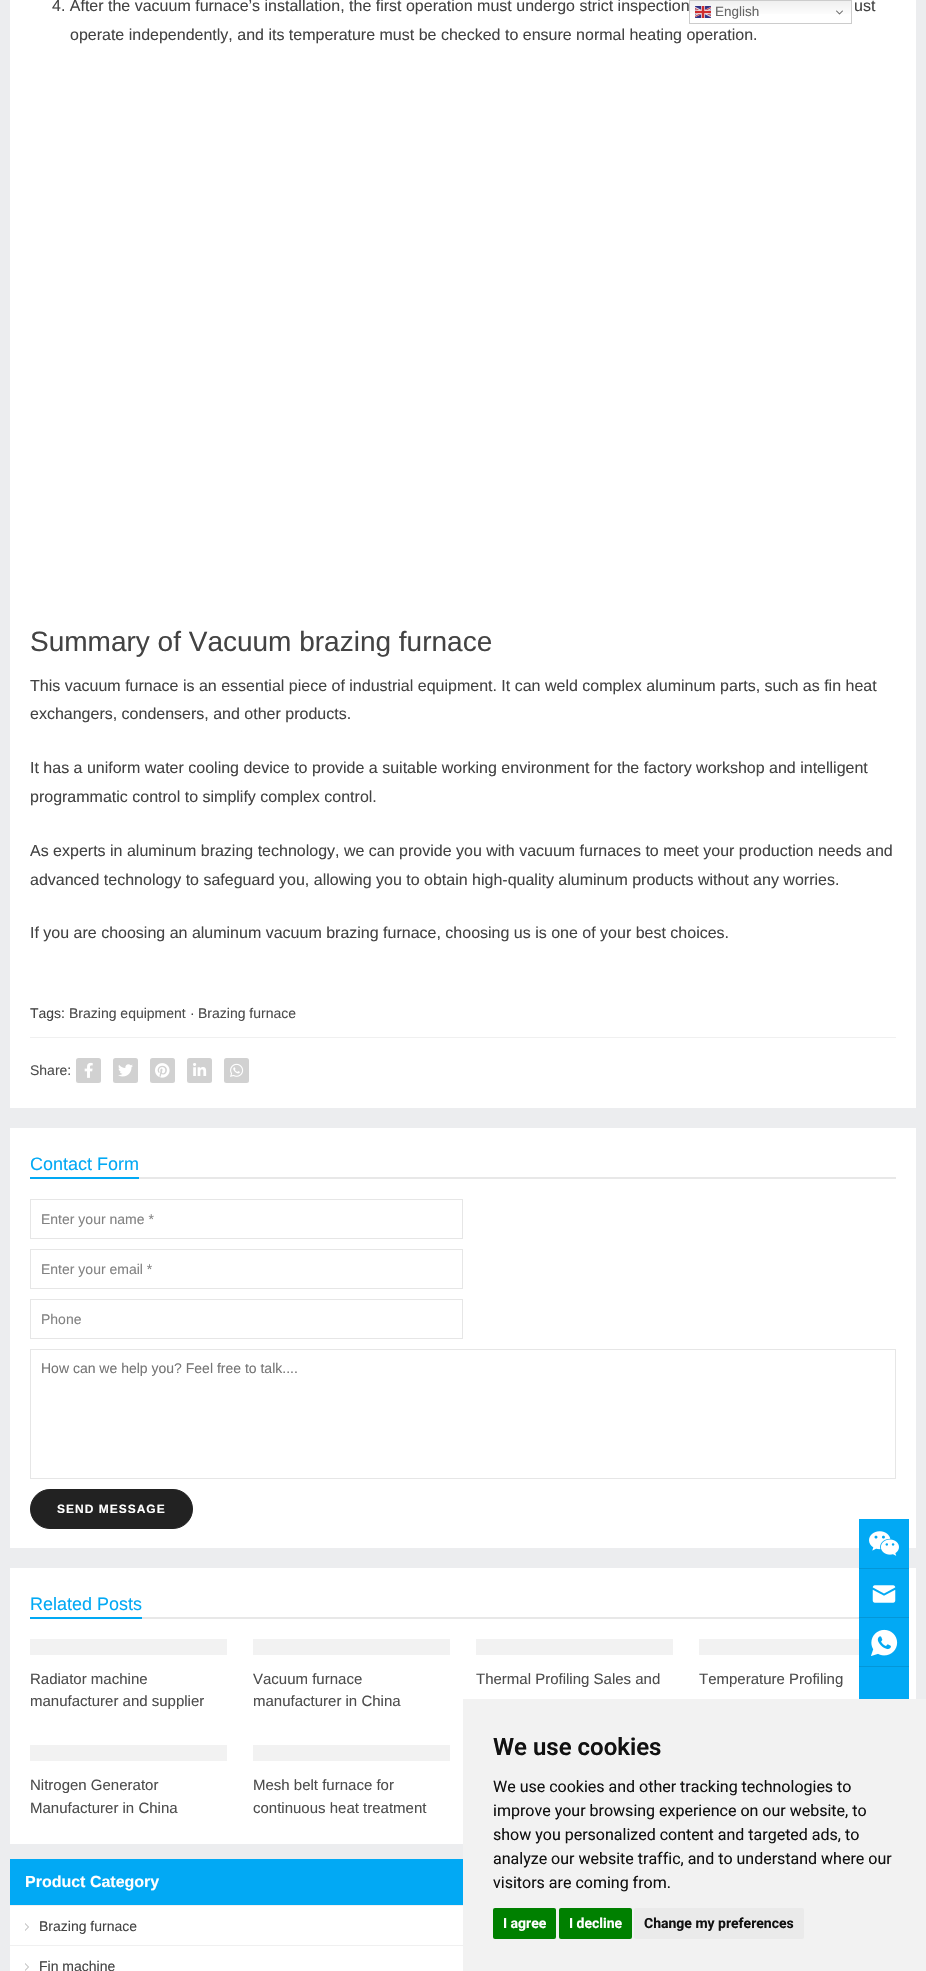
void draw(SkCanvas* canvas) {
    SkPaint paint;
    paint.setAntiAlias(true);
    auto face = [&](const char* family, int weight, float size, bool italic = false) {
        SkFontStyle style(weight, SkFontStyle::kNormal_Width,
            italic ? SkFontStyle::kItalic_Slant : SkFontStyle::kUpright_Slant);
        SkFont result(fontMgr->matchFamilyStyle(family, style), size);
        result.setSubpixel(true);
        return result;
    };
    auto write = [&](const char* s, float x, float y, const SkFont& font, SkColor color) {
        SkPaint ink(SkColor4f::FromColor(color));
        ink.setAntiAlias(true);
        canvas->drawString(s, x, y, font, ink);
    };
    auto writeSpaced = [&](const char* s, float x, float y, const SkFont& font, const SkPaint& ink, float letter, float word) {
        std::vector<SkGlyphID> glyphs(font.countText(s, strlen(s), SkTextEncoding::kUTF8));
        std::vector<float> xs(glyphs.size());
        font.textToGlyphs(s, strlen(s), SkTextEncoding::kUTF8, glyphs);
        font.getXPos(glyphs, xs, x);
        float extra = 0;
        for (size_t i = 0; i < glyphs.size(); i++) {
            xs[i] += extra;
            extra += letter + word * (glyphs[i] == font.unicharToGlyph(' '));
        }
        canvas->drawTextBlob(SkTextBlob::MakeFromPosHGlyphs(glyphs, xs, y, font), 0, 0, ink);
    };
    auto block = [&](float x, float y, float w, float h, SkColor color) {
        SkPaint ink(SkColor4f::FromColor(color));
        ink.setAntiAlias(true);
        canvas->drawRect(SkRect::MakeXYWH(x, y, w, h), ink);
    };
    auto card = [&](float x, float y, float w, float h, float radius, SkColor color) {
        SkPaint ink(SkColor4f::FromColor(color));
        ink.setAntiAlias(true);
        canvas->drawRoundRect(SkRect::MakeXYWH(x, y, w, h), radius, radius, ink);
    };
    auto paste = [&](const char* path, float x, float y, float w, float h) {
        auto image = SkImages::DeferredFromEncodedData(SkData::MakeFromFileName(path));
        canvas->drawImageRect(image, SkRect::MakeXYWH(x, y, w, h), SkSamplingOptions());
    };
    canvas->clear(SkColorSetRGB(236, 237, 239));
    block(10, 0, 906, 1108, SK_ColorWHITE);
    auto kFont1 = face("Liberation Sans", 400, 16);
    write("4. After the vacuum furnace’s installation, the first operation must undergo strict inspection", 52, 11, kFont1, SkColorSetRGB(67, 67, 67));
    write("ust", 854, 11, kFont1, SkColorSetRGB(67, 67, 67));
    write("operate independently, and its temperature must be checked to ensure normal heating operation.", 70, 40, kFont1, SkColorSetRGB(67, 67, 67));
    auto kFont2 = face("Liberation Sans", 400, 28);
    write("Summary of Vacuum brazing furnace", 30, 651, kFont2, SkColorSetRGB(67, 67, 67));
    write("This vacuum furnace is an essential piece of industrial equipment. It can weld complex aluminum parts, such as fin heat", 30, 691, kFont1, SkColorSetRGB(67, 67, 67));
    write("exchangers, condensers, and other products.", 30, 719, kFont1, SkColorSetRGB(67, 67, 67));
    write("It has a uniform water cooling device to provide a suitable working environment for the factory workshop and intelligent", 30, 773, kFont1, SkColorSetRGB(67, 67, 67));
    write("programmatic control to simplify complex control.", 30, 802, kFont1, SkColorSetRGB(67, 67, 67));
    write("As experts in aluminum brazing technology, we can provide you with vacuum furnaces to meet your production needs and", 30, 856, kFont1, SkColorSetRGB(67, 67, 67));
    write("advanced technology to safeguard you, allowing you to obtain high-quality aluminum products without any worries.", 30, 885, kFont1, SkColorSetRGB(67, 67, 67));
    write("If you are choosing an aluminum vacuum brazing furnace, choosing us is one of your best choices.", 30, 938, kFont1, SkColorSetRGB(67, 67, 67));
    auto kFont3 = face("Liberation Sans", 400, 14);
    write("Tags:", 30, 1018, kFont3, SkColorSetRGB(67, 67, 67));
    write("Brazing equipment", 69, 1018, kFont3, SkColorSetRGB(77, 77, 77));
    write("·", 190, 1018, kFont3, SkColorSetRGB(67, 67, 67));
    write("Brazing furnace", 198, 1018, kFont3, SkColorSetRGB(77, 77, 77));
    block(30, 1037, 866, 1, SkColorSetRGB(240, 240, 240));
    write("Share:", 30, 1075, kFont3, SkColorSetRGB(77, 77, 77));
    card(76, 1058, 25, 25, 2.5f, SkColorSetRGB(209, 209, 209));
    paste("pic1.png", 84, 1062, 9, 16);
    card(113, 1058, 25, 25, 2.5f, SkColorSetRGB(209, 209, 209));
    paste("pic2.png", 118, 1064, 15, 13);
    card(150, 1058, 25, 25, 2.5f, SkColorSetRGB(209, 209, 209));
    paste("pic3.png", 155, 1063, 15, 15);
    card(187, 1058, 25, 25, 2.5f, SkColorSetRGB(209, 209, 209));
    paste("pic4.png", 193, 1063, 14, 13);
    card(224, 1058, 25, 25, 2.5f, SkColorSetRGB(209, 209, 209));
    paste("pic5.png", 230, 1063, 14, 14);
    block(10, 1128, 906, 420, SK_ColorWHITE);
    block(139, 1177, 757, 2, SkColorSetRGB(232, 232, 232));
    block(30, 1177, 109, 2, SkColorSetRGB(2, 169, 244));
    auto kFont4 = face("Liberation Sans", 400, 18);
    write("Contact Form", 30, 1170, kFont4, SkColorSetRGB(2, 169, 244));
    paint.setStyle(SkPaint::kStroke_Style);
    paint.setStrokeWidth(1);
    paint.setColor(SkColorSetRGB(230, 230, 230));
    canvas->drawRect(SkRect::MakeXYWH(30.5f, 1199.5f, 432, 39), paint);
    write("Enter your name *", 41, 1224, kFont3, SkColorSetRGB(130, 130, 130));
    canvas->drawRect(SkRect::MakeXYWH(30.5f, 1249.5f, 432, 39), paint);
    write("Enter your email *", 41, 1274, kFont3, SkColorSetRGB(130, 130, 130));
    canvas->drawRect(SkRect::MakeXYWH(30.5f, 1299.5f, 432, 39), paint);
    write("Phone", 41, 1324, kFont3, SkColorSetRGB(130, 130, 130));
    canvas->drawRect(SkRect::MakeXYWH(30.5f, 1349.5f, 865, 129), paint);
    write("How can we help you? Feel free to talk....", 41, 1373, kFont3, SkColorSetRGB(117, 117, 117));
    paint.setStyle(SkPaint::kFill_Style);
    paint.setColor(SkColorSetRGB(34, 34, 34));
    canvas->drawRoundRect(SkRect::MakeXYWH(30.5f, 1489.5f, 162, 39), 19.5f, 19.5f, paint);
    paint.setStyle(SkPaint::kStroke_Style);
    canvas->drawRoundRect(SkRect::MakeXYWH(30.5f, 1489.5f, 162, 39), 19.5f, 19.5f, paint);
    auto kFont5 = face("Liberation Sans", 700, 12);
    paint.setStyle(SkPaint::kFill_Style);
    paint.setColor(SK_ColorWHITE);
    writeSpaced("SEND MESSAGE", 57, 1513, kFont5, paint, 1, 0);
    block(10, 1568, 906, 276, SK_ColorWHITE);
    block(142, 1617, 717, 2, SkColorSetRGB(232, 232, 232));
    block(30, 1617, 112, 2, SkColorSetRGB(2, 169, 244));
    write("Related Posts", 30, 1610, kFont4, SkColorSetRGB(2, 169, 244));
    block(30, 1639, 197, 16, SkColorSetRGB(242, 242, 242));
    auto kFont6 = face("Liberation Sans", 400, 15);
    write("Radiator machine", 30, 1684, kFont6, SkColorSetRGB(77, 77, 77));
    write("manufacturer and supplier", 30, 1706, kFont6, SkColorSetRGB(77, 77, 77));
    block(253, 1639, 197, 16, SkColorSetRGB(242, 242, 242));
    write("Vacuum furnace", 253, 1684, kFont6, SkColorSetRGB(77, 77, 77));
    write("manufacturer in China", 253, 1706, kFont6, SkColorSetRGB(77, 77, 77));
    block(476, 1639, 197, 16, SkColorSetRGB(242, 242, 242));
    write("Thermal Profiling Sales and", 476, 1684, kFont6, SkColorSetRGB(77, 77, 77));
    block(699, 1639, 160, 16, SkColorSetRGB(242, 242, 242));
    write("Temperature Profiling", 699, 1684, kFont6, SkColorSetRGB(77, 77, 77));
    block(30, 1745, 197, 16, SkColorSetRGB(242, 242, 242));
    write("Nitrogen Generator", 30, 1790, kFont6, SkColorSetRGB(77, 77, 77));
    write("Manufacturer in China", 30, 1813, kFont6, SkColorSetRGB(77, 77, 77));
    block(253, 1745, 197, 16, SkColorSetRGB(242, 242, 242));
    write("Mesh belt furnace for", 253, 1790, kFont6, SkColorSetRGB(77, 77, 77));
    write("continuous heat treatment", 253, 1813, kFont6, SkColorSetRGB(77, 77, 77));
    block(10, 1859, 453, 46, SkColorSetRGB(2, 169, 244));
    block(10, 1905, 453, 1, SkColorSetRGB(240, 240, 240));
    auto kFont7 = face("Liberation Sans", 700, 16);
    write("Product Category", 25, 1887, kFont7, SK_ColorWHITE);
    block(10, 1906, 453, 39, SK_ColorWHITE);
    paste("pic6.png", 25, 1923, 4, 8);
    block(10, 1945, 453, 1, SkColorSetRGB(240, 240, 240));
    write("Brazing furnace", 39, 1931, kFont3, SkColorSetRGB(67, 67, 67));
    block(10, 1946, 453, 25, SK_ColorWHITE);
    paste("pic6.png", 25, 1963, 4, 8);
    write("Fin machine", 39, 1971, kFont3, SkColorSetRGB(67, 67, 67));
    {
        const SkColor colors[] = {SkColorSetRGB(239, 239, 239), SK_ColorWHITE};
        const float stops[] = {0, 0.7f};
        const SkPoint ends[] = {{771, 0}, {771, 24}};
        paint.setShader(SkGradientShader::MakeLinear(ends, colors, stops, 2, SkTileMode::kClamp));
        paint.setAlpha(255);
    }
    canvas->drawRect(SkRect::MakeXYWH(690, 1, 161, 13), paint);
    paint.setStyle(SkPaint::kStroke_Style);
    paint.setShader(nullptr);
    paint.setColor(SkColorSetRGB(204, 204, 204));
    canvas->drawRect(SkRect::MakeXYWH(689.5f, 0.5f, 162, 23), paint);
    paste("pic7.png", 695, 6, 16, 12);
    auto kFont8 = face("Liberation Sans", 400, 13.5f);
    write("English", 715, 16, kFont8, SkColorSetRGB(102, 102, 102));
    paste("pic8.png", 836, 10, 7, 5);
    block(859, 1519, 50, 49, SkColorSetRGB(2, 169, 244));
    paste("pic9.png", 869, 1531, 30, 25);
    block(859, 1568, 50, 1, SkColorSetRGB(3, 150, 216));
    block(859, 1569, 50, 48, SkColorSetRGB(2, 169, 244));
    paste("pic10.png", 872, 1585, 24, 18);
    block(859, 1617, 50, 1, SkColorSetRGB(3, 150, 216));
    block(859, 1618, 50, 48, SkColorSetRGB(2, 169, 244));
    paste("pic11.png", 871, 1629, 27, 27);
    block(859, 1666, 50, 1, SkColorSetRGB(3, 150, 216));
    block(859, 1667, 50, 32, SkColorSetRGB(2, 169, 244));
    block(463, 1699, 463, 272, SkColorSetRGB(242, 242, 242));
    auto kFont9 = face("Roboto", 600, 24);
    write("We use cookies", 493, 1755, kFont9, SkColorSetRGB(17, 17, 17));
    auto kFont10 = face("Roboto", 400, 16);
    write("We use cookies and other tracking technologies to", 493, 1792, kFont10, SkColorSetRGB(17, 17, 17));
    write("improve your browsing experience on our website, to", 493, 1816, kFont10, SkColorSetRGB(17, 17, 17));
    write("show you personalized content and targeted ads, to", 493, 1840, kFont10, SkColorSetRGB(17, 17, 17));
    write("analyze our website traffic, and to understand where our", 493, 1864, kFont10, SkColorSetRGB(17, 17, 17));
    write("visitors are coming from.", 493, 1888, kFont10, SkColorSetRGB(17, 17, 17));
    card(493, 1908, 63, 31, 2, SkColorSetRGB(0, 128, 0));
    auto kFont11 = face("Roboto", 700, 14);
    write("I agree", 503, 1928, kFont11, SK_ColorWHITE);
    card(559, 1908, 73, 31, 2, SkColorSetRGB(0, 128, 0));
    write("I decline", 569, 1928, kFont11, SK_ColorWHITE);
    card(634, 1908, 170, 31, 2, SkColorSetRGB(234, 234, 234));
    write("Change my preferences", 644, 1928, kFont11, SkColorSetRGB(17, 17, 17));
}
